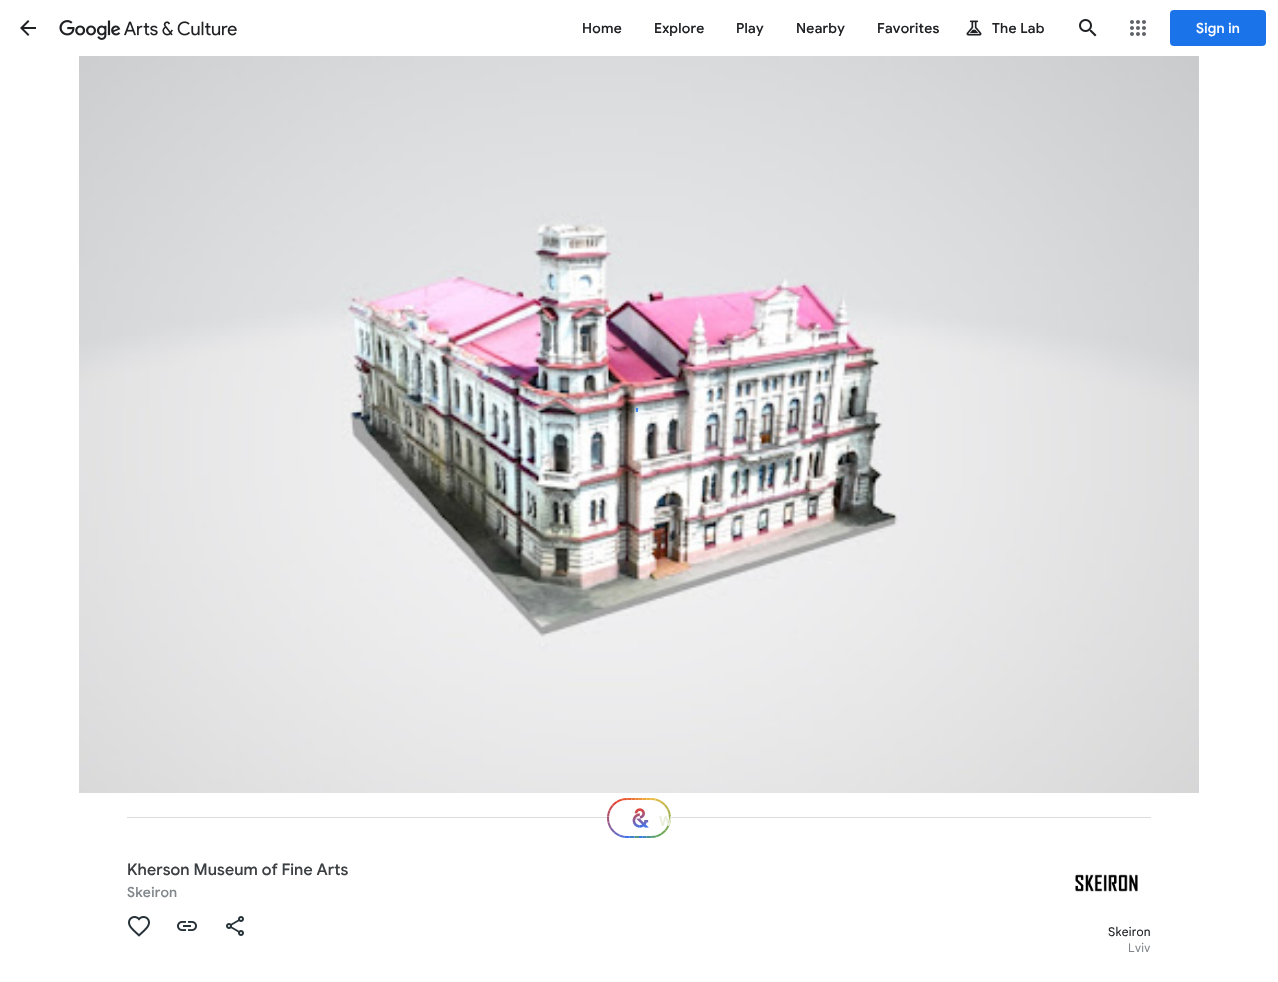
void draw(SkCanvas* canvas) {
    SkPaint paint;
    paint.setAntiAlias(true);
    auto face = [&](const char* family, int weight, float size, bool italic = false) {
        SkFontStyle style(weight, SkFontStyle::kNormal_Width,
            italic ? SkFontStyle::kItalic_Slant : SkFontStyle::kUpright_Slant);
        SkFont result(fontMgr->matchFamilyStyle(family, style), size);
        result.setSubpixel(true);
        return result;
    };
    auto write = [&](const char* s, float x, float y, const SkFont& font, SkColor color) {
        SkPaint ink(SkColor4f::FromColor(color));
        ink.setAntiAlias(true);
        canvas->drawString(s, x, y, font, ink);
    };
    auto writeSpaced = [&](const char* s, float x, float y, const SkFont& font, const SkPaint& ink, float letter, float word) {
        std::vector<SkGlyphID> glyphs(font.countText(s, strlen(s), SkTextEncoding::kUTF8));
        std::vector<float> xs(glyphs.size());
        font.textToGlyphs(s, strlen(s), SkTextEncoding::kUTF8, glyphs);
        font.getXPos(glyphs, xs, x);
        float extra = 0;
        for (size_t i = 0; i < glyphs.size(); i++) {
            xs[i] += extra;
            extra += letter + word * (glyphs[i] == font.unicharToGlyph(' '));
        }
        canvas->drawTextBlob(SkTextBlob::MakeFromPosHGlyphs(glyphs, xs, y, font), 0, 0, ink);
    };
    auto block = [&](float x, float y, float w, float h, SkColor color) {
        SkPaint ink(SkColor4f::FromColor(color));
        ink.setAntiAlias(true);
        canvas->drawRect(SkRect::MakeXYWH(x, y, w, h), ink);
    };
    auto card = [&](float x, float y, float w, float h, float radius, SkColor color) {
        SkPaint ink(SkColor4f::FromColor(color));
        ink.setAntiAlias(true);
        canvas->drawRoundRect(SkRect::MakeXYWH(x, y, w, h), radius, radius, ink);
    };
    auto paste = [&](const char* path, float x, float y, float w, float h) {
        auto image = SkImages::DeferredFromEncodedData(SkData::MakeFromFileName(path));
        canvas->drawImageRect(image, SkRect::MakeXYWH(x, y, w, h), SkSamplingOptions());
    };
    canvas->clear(SK_ColorWHITE);
    paste("pic1.png", 20, 20, 16, 16);
    paste("pic2.png", 59, 20, 178, 20);
    auto kFont1 = face("Google Sans", 500, 14);
    paint.setColor(SkColorSetRGB(32, 33, 36));
    writeSpaced("Home", 582, 33, kFont1, paint, 0.25f, 0);
    writeSpaced("Explore", 654, 33, kFont1, paint, 0.25f, 0);
    writeSpaced("Play", 736, 33, kFont1, paint, 0.25f, 0);
    writeSpaced("Nearby", 796, 33, kFont1, paint, 0.25f, 0);
    writeSpaced("Favorites", 877, 33, kFont1, paint, 0.25f, 0);
    paste("pic3.png", 966, 20, 16, 16);
    writeSpaced("The Lab", 992, 33, kFont1, paint, 0.25f, 0);
    paste("pic4.png", 1079, 19, 18, 18);
    paste("pic5.png", 1130, 20, 16, 16);
    card(1170, 10, 96, 36, 4, SkColorSetRGB(26, 115, 232));
    paint.setColor(SK_ColorWHITE);
    writeSpaced("Sign in", 1196, 33, kFont1, paint, 0.25f, 0);
    paste("pic6.png", 79, 56, 1120, 737);
    canvas->save();
    canvas->clipRect(SkRect::MakeXYWH(623, 408, 14, 28));
    paint.setStyle(SkPaint::kStroke_Style);
    paint.setStrokeWidth(3);
    paint.setColor(SkColorSetARGB(252, 66, 133, 244));
    canvas->drawPath(SkPathBuilder().moveTo(636, 410).cubicTo(652.5f, 408.5f, 654.5f, 433.5f, 638, 434.5f).detach(), paint);
    canvas->restore();
    canvas->save();
    canvas->clipRect(SkRect::MakeXYWH(636, 408, 2, 28));
    canvas->drawPath(SkPathBuilder().moveTo(628, 431).cubicTo(625, 428, 624, 423.5f, 624.5f, 419.5f).cubicTo(627.5f, 405, 649.5f, 407, 649.5f, 422).cubicTo(649.5f, 425.5f, 648, 428.5f, 646, 431).detach(), paint);
    canvas->restore();
    canvas->save();
    canvas->clipRect(SkRect::MakeXYWH(637, 408, 14, 28));
    paint.setColor(SkColorSetRGB(66, 133, 244));
    canvas->drawPath(SkPathBuilder().moveTo(636, 434.5f).cubicTo(619.5f, 433.5f, 621.5f, 408.5f, 638, 410).detach(), paint);
    canvas->restore();
    canvas->save();
    canvas->clipRect(SkRect::MakeXYWH(623, 408, 14, 28));
    canvas->drawPath(SkPathBuilder().moveTo(636, 410).cubicTo(652.5f, 408.5f, 654.5f, 433.5f, 638, 434.5f).detach(), paint);
    canvas->restore();
    canvas->save();
    canvas->clipRect(SkRect::MakeXYWH(637, 408, 14, 28));
    canvas->drawPath(SkPathBuilder().moveTo(636, 434.5f).cubicTo(619.5f, 433.5f, 621.5f, 408.5f, 638, 410).detach(), paint);
    canvas->restore();
    canvas->save();
    canvas->clipRect(SkRect::MakeXYWH(623, 408, 14, 28));
    canvas->drawPath(SkPathBuilder().moveTo(636, 410).cubicTo(652.5f, 408.5f, 654.5f, 433.5f, 638, 434.5f).detach(), paint);
    canvas->restore();
    canvas->save();
    canvas->clipRect(SkRect::MakeXYWH(637, 408, 14, 28));
    canvas->drawPath(SkPathBuilder().moveTo(636, 434.5f).cubicTo(619.5f, 433.5f, 621.5f, 408.5f, 638, 410).detach(), paint);
    canvas->restore();
    canvas->save();
    canvas->clipRect(SkRect::MakeXYWH(623, 408, 14, 28));
    canvas->drawPath(SkPathBuilder().moveTo(636, 410).cubicTo(652.5f, 408.5f, 654.5f, 433.5f, 638, 434.5f).detach(), paint);
    canvas->restore();
    canvas->save();
    canvas->clipRect(SkRect::MakeXYWH(637, 408, 14, 28));
    canvas->drawPath(SkPathBuilder().moveTo(636, 434.5f).cubicTo(619.5f, 433.5f, 621.5f, 408.5f, 638, 410).detach(), paint);
    canvas->restore();
    block(127, 817, 1024, 1, SkColorSetRGB(218, 220, 224));
    paste("pic7.png", 607, 798, 64, 40);
    card(609, 800, 60, 36, 18, SK_ColorWHITE);
    paste("pic8.png", 632, 808, 17, 20);
    canvas->save();
    canvas->clipPath(SkPathBuilder().moveTo(627, 798).lineTo(651, 798).cubicTo(662, 798, 671, 807, 671, 818).cubicTo(671, 829, 662, 838, 651, 838).lineTo(627, 838).cubicTo(616, 838, 607, 829, 607, 818).cubicTo(607, 807, 616, 798, 627, 798).close().detach(), true);
    write("W", 659, 826, kFont1, SkColorSetRGB(233, 238, 219));
    canvas->restore();
    auto kFont2 = face("Google Sans", 500, 16);
    paint.setStyle(SkPaint::kFill_Style);
    paint.setColor(SkColorSetRGB(60, 64, 67));
    writeSpaced("Kherson Museum of Fine Arts", 127, 875, kFont2, paint, 0.1f, 0);
    paint.setColor(SkColorSetRGB(128, 134, 139));
    writeSpaced("Skeiron", 127, 897, kFont1, paint, 0.25f, 0);
    paste("pic9.png", 128, 916, 22, 21);
    paste("pic10.png", 177, 921, 20, 10);
    paste("pic11.png", 226, 916, 18, 20);
    paste("pic12.png", 1075, 874, 63, 18);
    auto kFont3 = face("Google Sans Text", 400, 12);
    paint.setColor(SkColorSetRGB(32, 33, 36));
    writeSpaced("Skeiron", 1108, 936, kFont3, paint, 0.25f, 0);
    paint.setColor(SkColorSetRGB(128, 134, 139));
    writeSpaced("Lviv", 1128, 952, kFont3, paint, 0.25f, 0);
}
